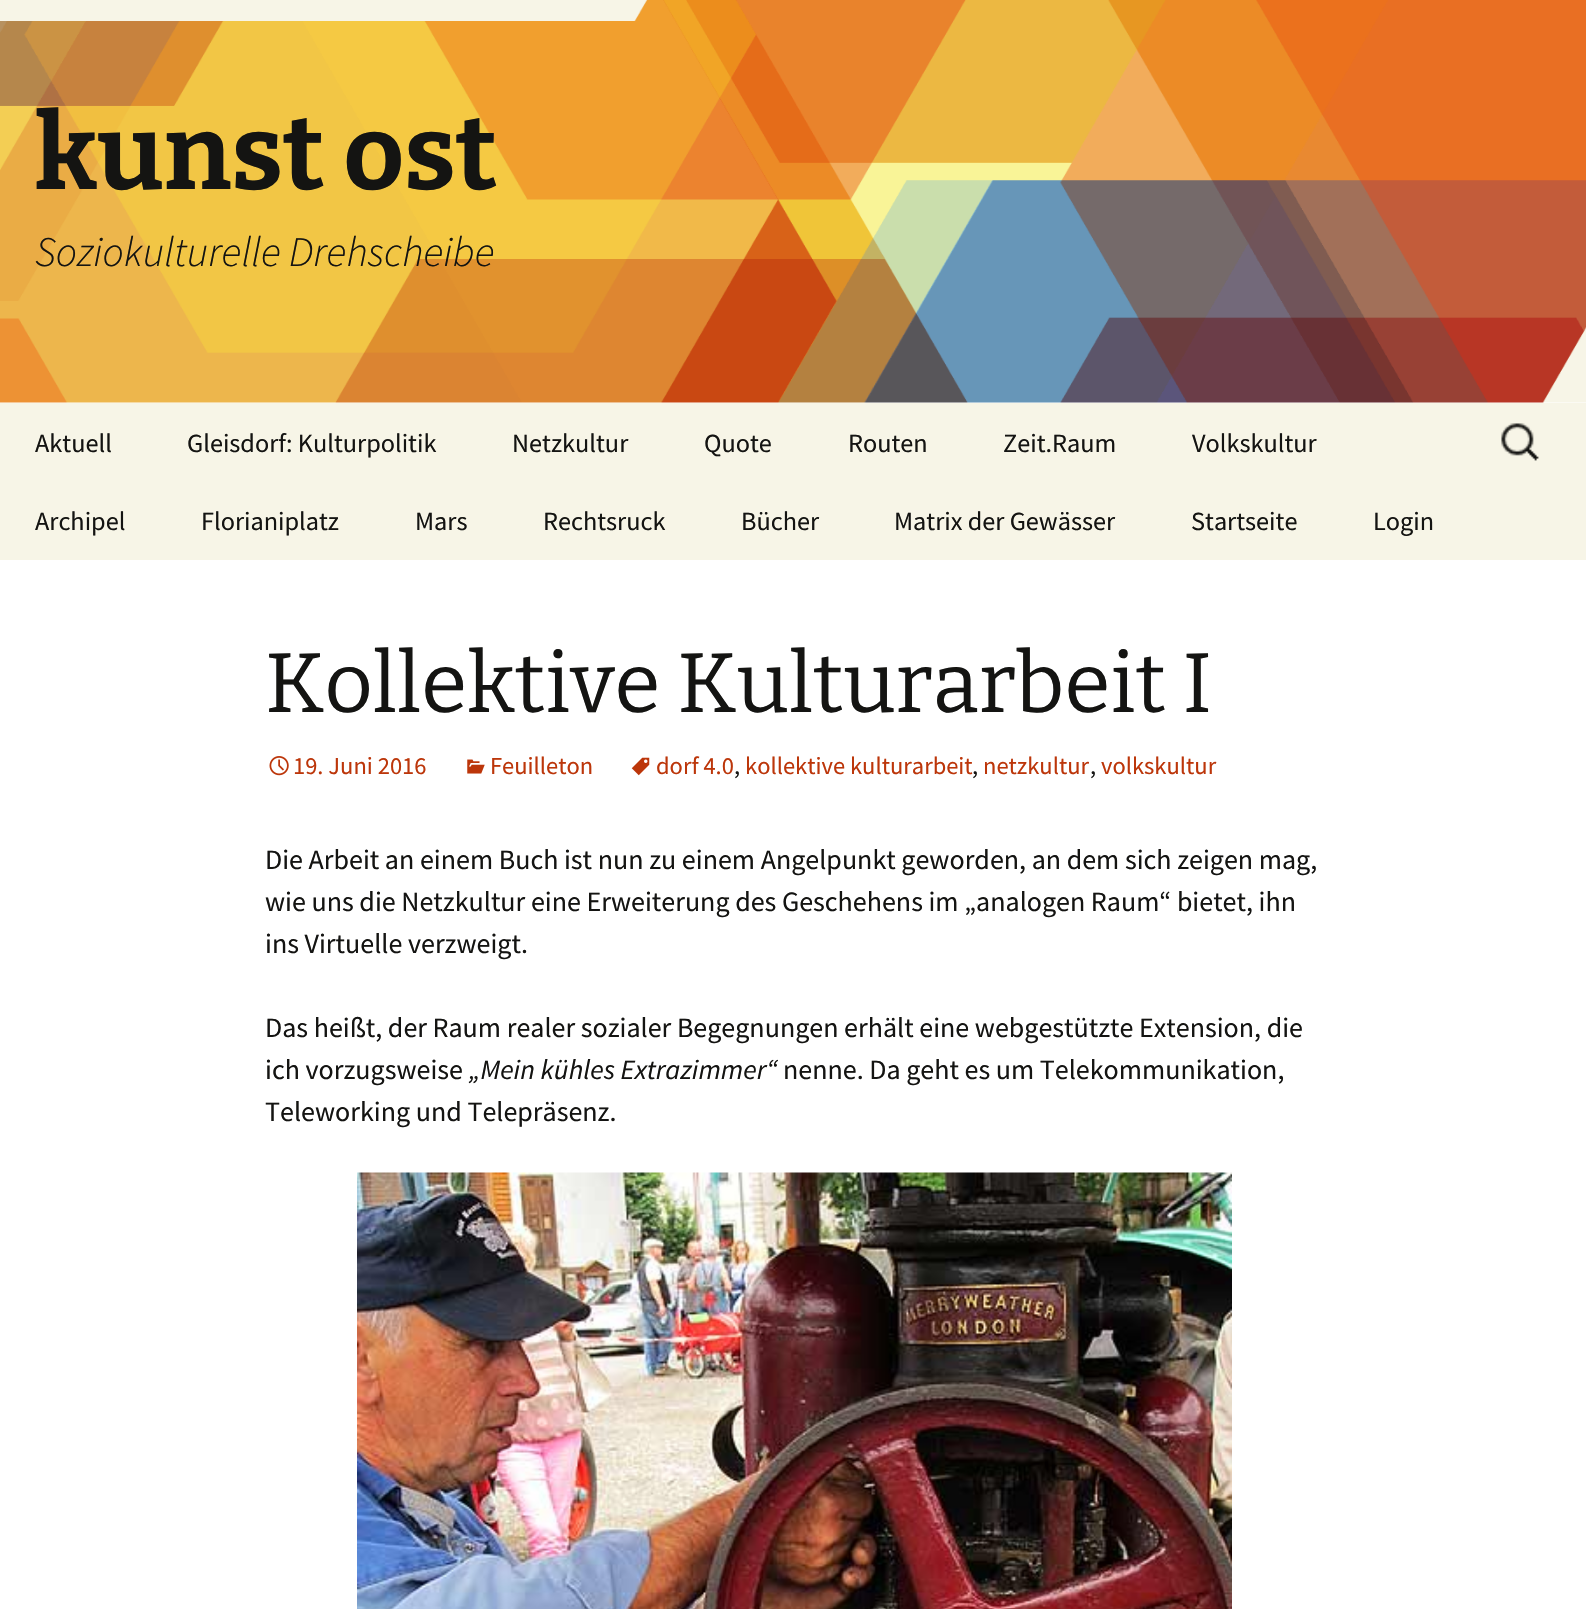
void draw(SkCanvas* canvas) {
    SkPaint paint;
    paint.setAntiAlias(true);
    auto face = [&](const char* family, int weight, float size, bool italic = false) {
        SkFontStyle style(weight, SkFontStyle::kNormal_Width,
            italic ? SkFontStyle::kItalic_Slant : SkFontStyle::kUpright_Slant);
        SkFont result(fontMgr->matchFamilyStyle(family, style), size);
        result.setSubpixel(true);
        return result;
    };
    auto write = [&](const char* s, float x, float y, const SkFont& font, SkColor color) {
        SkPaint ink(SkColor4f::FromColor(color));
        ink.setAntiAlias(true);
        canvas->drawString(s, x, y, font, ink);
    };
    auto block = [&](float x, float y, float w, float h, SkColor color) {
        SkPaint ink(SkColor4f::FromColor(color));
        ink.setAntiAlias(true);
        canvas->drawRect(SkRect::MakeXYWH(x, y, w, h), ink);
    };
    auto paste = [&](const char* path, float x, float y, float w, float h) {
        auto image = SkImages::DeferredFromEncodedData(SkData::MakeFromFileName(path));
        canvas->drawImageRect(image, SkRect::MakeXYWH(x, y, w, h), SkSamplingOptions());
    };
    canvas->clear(SK_ColorWHITE);
    paste("pic1.png", 0, 0, 1586, 403);
    auto kFont1 = face("Bitter", 700, 105);
    write("kunst ost", 35, 189, kFont1, SkColorSetRGB(20, 20, 18));
    auto kFont2 = face("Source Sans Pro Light", 300, 42, true);
    write("Soziokulturelle Drehscheibe", 35, 266, kFont2, SkColorSetRGB(20, 20, 18));
    block(0, 403, 1586, 157, SkColorSetRGB(247, 245, 231));
    auto kFont3 = face("Source Sans Pro", 400, 26.25f);
    write("Aktuell", 35, 452, kFont3, SkColorSetRGB(20, 20, 18));
    write("Gleisdorf: Kulturpolitik", 187, 452, kFont3, SkColorSetRGB(20, 20, 18));
    write("Netzkultur", 512, 452, kFont3, SkColorSetRGB(20, 20, 18));
    write("Quote", 704, 452, kFont3, SkColorSetRGB(20, 20, 18));
    write("Routen", 848, 452, kFont3, SkColorSetRGB(20, 20, 18));
    write("Zeit.Raum", 1003, 452, kFont3, SkColorSetRGB(20, 20, 18));
    write("Volkskultur", 1192, 452, kFont3, SkColorSetRGB(20, 20, 18));
    write("Archipel", 35, 530, kFont3, SkColorSetRGB(20, 20, 18));
    write("Florianiplatz", 201, 530, kFont3, SkColorSetRGB(20, 20, 18));
    write("Mars", 415, 530, kFont3, SkColorSetRGB(20, 20, 18));
    write("Rechtsruck", 543, 530, kFont3, SkColorSetRGB(20, 20, 18));
    write("Bücher", 741, 530, kFont3, SkColorSetRGB(20, 20, 18));
    write("Matrix der Gewässer", 894, 530, kFont3, SkColorSetRGB(20, 20, 18));
    write("Startseite", 1191, 530, kFont3, SkColorSetRGB(20, 20, 18));
    write("Login", 1373, 530, kFont3, SkColorSetRGB(20, 20, 18));
    paste("pic2.png", 1501, 423, 38, 38);
    auto kFont4 = face("Bitter", 400, 84);
    write("Kollektive Kulturarbeit I", 265, 712, kFont4, SkColorSetRGB(20, 20, 18));
    paste("pic3.png", 269, 756, 20, 20);
    auto kFont5 = face("Source Sans Pro", 400, 24.5f);
    write("19. Juni 2016", 293, 774, kFont5, SkColorSetRGB(188, 54, 10));
    paste("pic4.png", 467, 759, 18, 15);
    write("Feuilleton", 490, 774, kFont5, SkColorSetRGB(188, 54, 10));
    paste("pic5.png", 631, 757, 19, 19);
    write("dorf 4.0", 656, 774, kFont5, SkColorSetRGB(188, 54, 10));
    write(",", 734, 774, kFont5, SkColorSetRGB(20, 20, 18));
    write("kollektive kulturarbeit", 745, 774, kFont5, SkColorSetRGB(188, 54, 10));
    write(",", 972, 774, kFont5, SkColorSetRGB(20, 20, 18));
    write("netzkultur", 983, 774, kFont5, SkColorSetRGB(188, 54, 10));
    write(",", 1090, 774, kFont5, SkColorSetRGB(20, 20, 18));
    write("volkskultur", 1101, 774, kFont5, SkColorSetRGB(188, 54, 10));
    auto kFont6 = face("Source Sans Pro", 400, 28);
    write("Die Arbeit an einem Buch ist nun zu einem Angelpunkt geworden, an dem sich zeigen mag,", 265, 869, kFont6, SkColorSetRGB(20, 20, 18));
    write("wie uns die Netzkultur eine Erweiterung des Geschehens im „analogen Raum“ bietet, ihn", 265, 911, kFont6, SkColorSetRGB(20, 20, 18));
    write("ins Virtuelle verzweigt.", 265, 953, kFont6, SkColorSetRGB(20, 20, 18));
    write("Das heißt, der Raum realer sozialer Begegnungen erhält eine webgestützte Extension, die", 265, 1037, kFont6, SkColorSetRGB(20, 20, 18));
    write("ich vorzugsweise", 265, 1079, kFont6, SkColorSetRGB(20, 20, 18));
    auto kFont7 = face("Source Sans Pro", 400, 28, true);
    write("„Mein kühles Extrazimmer“", 469, 1079, kFont7, SkColorSetRGB(20, 20, 18));
    write("nenne. Da geht es um Telekommunikation,", 783, 1079, kFont6, SkColorSetRGB(20, 20, 18));
    write("Teleworking und Telepräsenz.", 265, 1121, kFont6, SkColorSetRGB(20, 20, 18));
    paste("pic6.png", 357, 1172, 875, 437);
}
